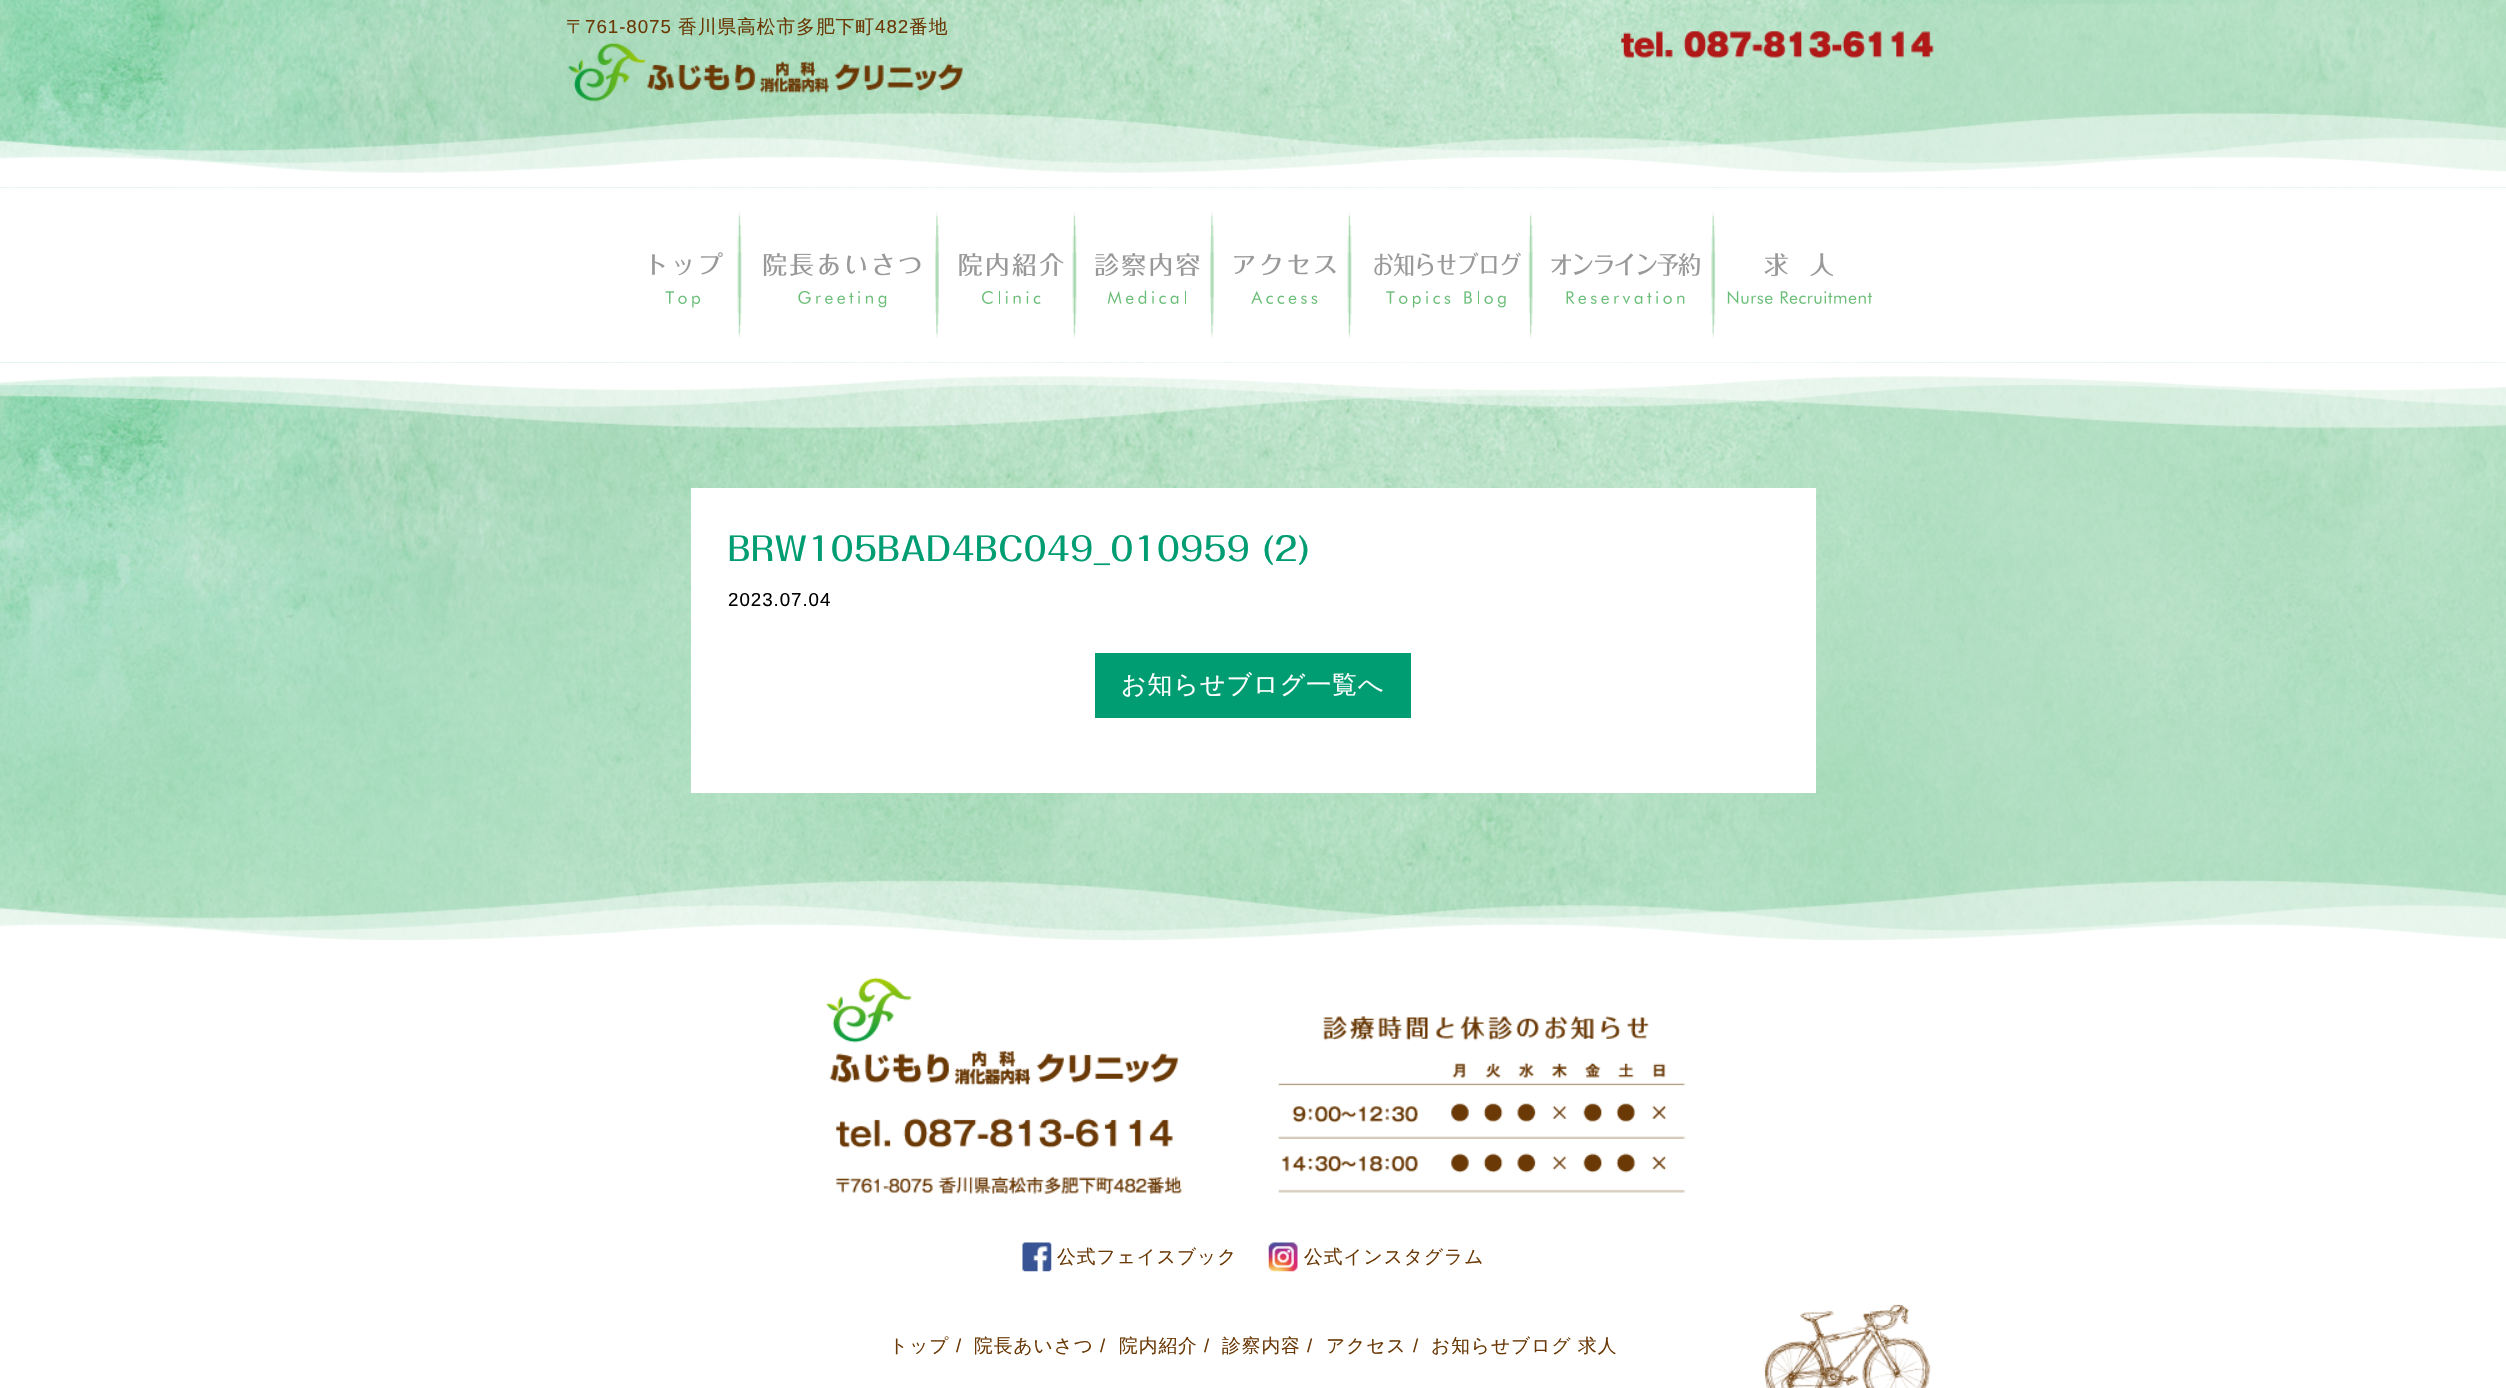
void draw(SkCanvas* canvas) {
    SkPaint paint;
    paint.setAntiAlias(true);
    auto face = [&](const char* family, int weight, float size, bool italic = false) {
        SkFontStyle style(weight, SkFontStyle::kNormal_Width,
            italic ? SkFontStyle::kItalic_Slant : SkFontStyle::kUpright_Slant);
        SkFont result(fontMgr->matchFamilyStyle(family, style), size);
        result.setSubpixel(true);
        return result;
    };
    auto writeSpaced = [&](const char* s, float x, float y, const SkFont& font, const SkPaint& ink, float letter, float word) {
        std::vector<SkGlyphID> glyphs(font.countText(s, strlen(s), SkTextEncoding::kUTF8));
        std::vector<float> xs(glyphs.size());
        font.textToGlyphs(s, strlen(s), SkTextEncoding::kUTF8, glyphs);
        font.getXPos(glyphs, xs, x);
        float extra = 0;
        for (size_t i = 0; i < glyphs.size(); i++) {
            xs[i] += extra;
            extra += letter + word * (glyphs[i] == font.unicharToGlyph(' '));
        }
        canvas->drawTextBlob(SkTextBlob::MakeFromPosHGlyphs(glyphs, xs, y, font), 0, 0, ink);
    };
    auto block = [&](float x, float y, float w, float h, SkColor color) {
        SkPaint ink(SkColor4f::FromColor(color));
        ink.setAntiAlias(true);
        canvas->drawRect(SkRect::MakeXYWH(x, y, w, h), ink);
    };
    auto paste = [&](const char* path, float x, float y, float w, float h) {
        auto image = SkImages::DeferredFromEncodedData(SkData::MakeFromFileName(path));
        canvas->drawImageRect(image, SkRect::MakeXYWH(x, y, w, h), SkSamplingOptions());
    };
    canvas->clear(SK_ColorWHITE);
    paste("pic1.png", 0, 0, 2506, 188);
    auto kFont1 = face("WenQuanYi Zen Hei", 500, 18.75f);
    paint.setColor(SkColorSetRGB(106, 57, 6));
    writeSpaced("〒", 566, 33, kFont1, paint, 0.95f, 0);
    auto kFont2 = face("Liberation Sans", 400, 18.75f);
    writeSpaced("761-8075", 585, 33, kFont2, paint, 0.95f, 0);
    writeSpaced("香川県高松市多肥下町", 678, 33, kFont1, paint, 0.95f, 0);
    writeSpaced("482", 875, 33, kFont2, paint, 0.95f, 0);
    writeSpaced("番地", 909, 33, kFont1, paint, 0.95f, 0);
    paste("pic2.png", 568, 43, 395, 59);
    paste("pic3.png", 1621, 31, 313, 27);
    paste("pic4.png", 652, 252, 71, 56);
    paste("pic5.png", 737, 212, 5, 126);
    paste("pic6.png", 763, 253, 158, 55);
    paste("pic7.png", 935, 212, 4, 126);
    paste("pic8.png", 959, 253, 105, 51);
    paste("pic5.png", 1072, 212, 5, 126);
    paste("pic9.png", 1095, 253, 105, 51);
    paste("pic10.png", 1210, 212, 4, 126);
    paste("pic11.png", 1234, 254, 102, 50);
    paste("pic5.png", 1347, 212, 5, 126);
    paste("pic12.png", 1374, 252, 147, 56);
    paste("pic13.png", 1528, 212, 5, 126);
    paste("pic14.png", 1551, 253, 149, 51);
    paste("pic15.png", 1711, 212, 5, 126);
    paste("pic16.png", 1727, 253, 145, 51);
    paste("pic17.png", 0, 362, 2506, 578);
    block(691, 488, 1125, 305, SK_ColorWHITE);
    auto kFont3 = face("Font", 500, 32.5f);
    paint.setColor(SkColorSetRGB(0, 156, 114));
    writeSpaced("BRW105BAD4BC049_010959 (2)", 728, 561, kFont3, paint, 0.95f, 0);
    paint.setColor(SK_ColorBLACK);
    writeSpaced("2023.07.04", 728, 606, kFont2, paint, 0.95f, 0);
    block(1095, 653, 316, 65, SkColorSetRGB(0, 156, 114));
    auto kFont4 = face("WenQuanYi Zen Hei", 500, 25);
    paint.setColor(SK_ColorWHITE);
    writeSpaced("お知らせブログ一覧へ", 1121, 693, kFont4, paint, 0.95f, 0);
    paste("pic18.png", 826, 977, 356, 217);
    paste("pic19.png", 1278, 1016, 408, 177);
    paste("pic20.png", 1022, 1242, 30, 30);
    paint.setColor(SkColorSetRGB(106, 57, 6));
    writeSpaced("公式フェイスブック", 1057, 1263, kFont1, paint, 0.95f, 0);
    paste("pic21.png", 1268, 1242, 30, 30);
    writeSpaced("公式インスタグラム", 1304, 1263, kFont1, paint, 0.95f, 0);
    paste("pic22.png", 1763, 1304, 168, 84);
    writeSpaced("トップ", 889, 1352, kFont1, paint, 0.95f, 0);
    writeSpaced("/", 956, 1352, kFont2, paint, 0.95f, 0);
    writeSpaced("院長あいさつ", 974, 1352, kFont1, paint, 0.95f, 0);
    writeSpaced("/", 1100, 1352, kFont2, paint, 0.95f, 0);
    writeSpaced("院内紹介", 1119, 1352, kFont1, paint, 0.95f, 0);
    writeSpaced("/", 1204, 1352, kFont2, paint, 0.95f, 0);
    writeSpaced("診察内容", 1222, 1352, kFont1, paint, 0.95f, 0);
    writeSpaced("/", 1307, 1352, kFont2, paint, 0.95f, 0);
    writeSpaced("アクセス", 1326, 1352, kFont1, paint, 0.95f, 0);
    writeSpaced("/", 1413, 1352, kFont2, paint, 0.95f, 0);
    writeSpaced("お知らせブログ", 1431, 1352, kFont1, paint, 0.95f, 0);
    writeSpaced("求人", 1578, 1352, kFont1, paint, 0.95f, 0);
}
